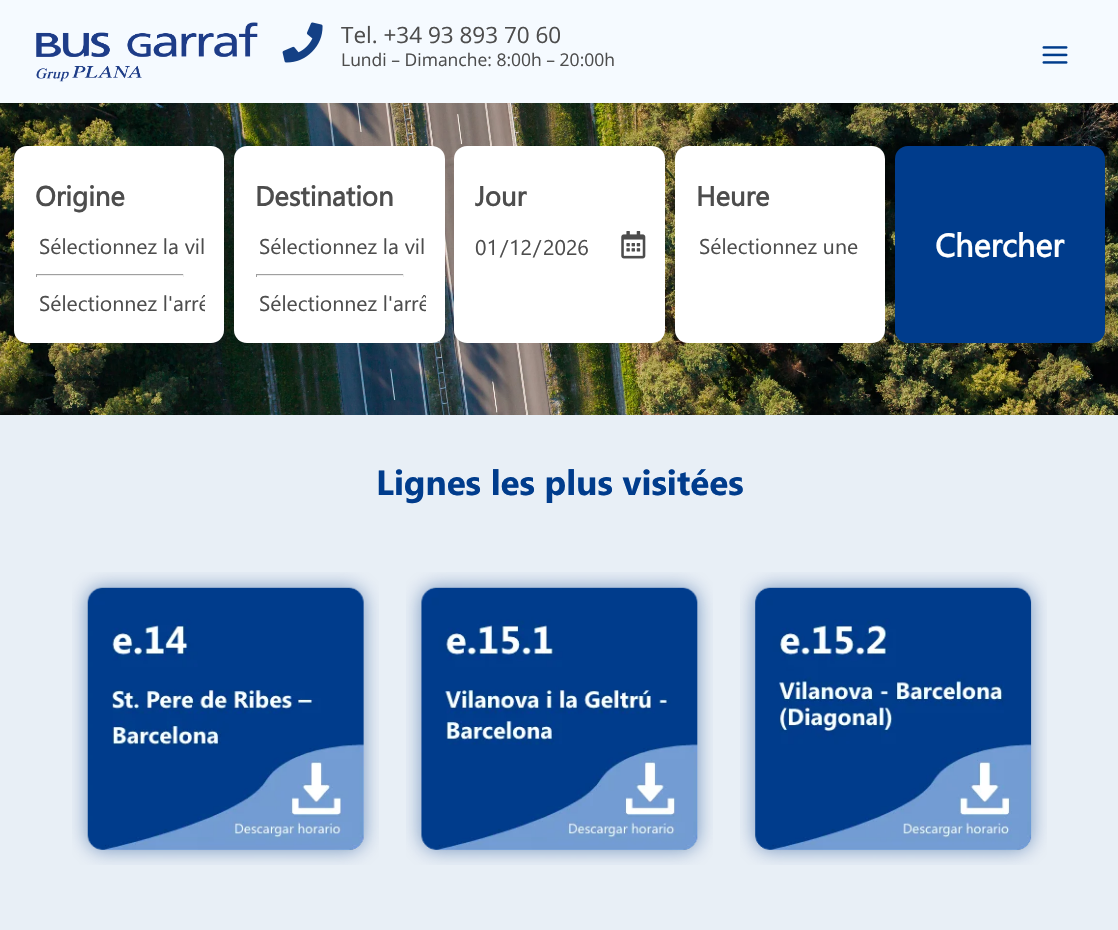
void draw(SkCanvas* canvas) {
    SkPaint paint;
    paint.setAntiAlias(true);
    auto face = [&](const char* family, int weight, float size, bool italic = false) {
        SkFontStyle style(weight, SkFontStyle::kNormal_Width,
            italic ? SkFontStyle::kItalic_Slant : SkFontStyle::kUpright_Slant);
        SkFont result(fontMgr->matchFamilyStyle(family, style), size);
        result.setSubpixel(true);
        return result;
    };
    auto write = [&](const char* s, float x, float y, const SkFont& font, SkColor color) {
        SkPaint ink(SkColor4f::FromColor(color));
        ink.setAntiAlias(true);
        canvas->drawString(s, x, y, font, ink);
    };
    auto block = [&](float x, float y, float w, float h, SkColor color) {
        SkPaint ink(SkColor4f::FromColor(color));
        ink.setAntiAlias(true);
        canvas->drawRect(SkRect::MakeXYWH(x, y, w, h), ink);
    };
    auto card = [&](float x, float y, float w, float h, float radius, SkColor color) {
        SkPaint ink(SkColor4f::FromColor(color));
        ink.setAntiAlias(true);
        canvas->drawRoundRect(SkRect::MakeXYWH(x, y, w, h), radius, radius, ink);
    };
    auto paste = [&](const char* path, float x, float y, float w, float h) {
        auto image = SkImages::DeferredFromEncodedData(SkData::MakeFromFileName(path));
        canvas->drawImageRect(image, SkRect::MakeXYWH(x, y, w, h), SkSamplingOptions());
    };
    canvas->clear(SkColorSetRGB(232, 239, 246));
    block(0, 0, 1118, 103, SkColorSetRGB(245, 250, 255));
    paste("pic1.png", 36, 22, 222, 60);
    paste("pic2.png", 282, 22, 41, 41);
    auto kFont1 = face("Open Sans", 400, 22.5f);
    write("Tel. +34 93 893 70 60", 341, 43, kFont1, SkColorSetRGB(77, 77, 77));
    auto kFont2 = face("Open Sans", 400, 17.5f);
    write("Lundi – Dimanche: 8:00h – 20:00h", 341, 66, kFont2, SkColorSetRGB(77, 77, 77));
    paste("pic3.png", 1042, 46, 26, 18);
    paste("pic4.png", 0, 103, 1118, 312);
    card(14, 146, 210, 197, 13, SK_ColorWHITE);
    auto kFont3 = face("Segoe UI", 700, 27.5f);
    write("Origine", 35, 206, kFont3, SkColorSetRGB(77, 77, 77));
    auto kFont4 = face("Segoe UI", 400, 21.25f);
    write("Sélectionnez la vil", 39, 254, kFont4, SkColorSetRGB(77, 77, 77));
    block(36, 274, 148, 1, SkColorSetRGB(159, 159, 159));
    block(183, 274, 1, 3, SkColorSetRGB(238, 238, 238));
    block(36, 275, 148, 1, SkColorSetRGB(238, 238, 238));
    block(36, 274, 1, 3, SkColorSetRGB(159, 159, 159));
    canvas->save();
    canvas->clipRect(SkRect::MakeXYWH(39, 289, 166, 27));
    write("Sélectionnez l'arrê", 39, 311, kFont4, SkColorSetRGB(77, 77, 77));
    canvas->restore();
    card(234, 146, 211, 197, 13, SK_ColorWHITE);
    write("Destination", 255, 206, kFont3, SkColorSetRGB(77, 77, 77));
    write("Sélectionnez la vil", 259, 254, kFont4, SkColorSetRGB(77, 77, 77));
    block(256, 274, 148, 1, SkColorSetRGB(159, 159, 159));
    block(403, 274, 1, 3, SkColorSetRGB(238, 238, 238));
    block(256, 275, 148, 1, SkColorSetRGB(238, 238, 238));
    block(256, 274, 1, 3, SkColorSetRGB(159, 159, 159));
    canvas->save();
    canvas->clipRect(SkRect::MakeXYWH(259, 289, 167, 27));
    write("Sélectionnez l'arrê", 259, 311, kFont4, SkColorSetRGB(77, 77, 77));
    canvas->restore();
    card(454, 146, 211, 197, 13, SK_ColorWHITE);
    write("Jour", 475, 206, kFont3, SkColorSetRGB(77, 77, 77));
    write("01", 475, 255, kFont4, SkColorSetRGB(77, 77, 77));
    write("/", 500, 255, kFont4, SkColorSetRGB(77, 77, 77));
    write("12", 509, 255, kFont4, SkColorSetRGB(77, 77, 77));
    write("/", 533, 255, kFont4, SkColorSetRGB(77, 77, 77));
    write("2026", 543, 255, kFont4, SkColorSetRGB(77, 77, 77));
    paste("pic5.png", 621, 231, 25, 28);
    card(675, 146, 210, 197, 13, SK_ColorWHITE);
    write("Heure", 696, 206, kFont3, SkColorSetRGB(77, 77, 77));
    write("Sélectionnez une", 699, 254, kFont4, SkColorSetRGB(77, 77, 77));
    card(895, 146, 210, 197, 13, SkColorSetRGB(0, 60, 140));
    auto kFont5 = face("Segoe UI", 700, 32.5f);
    write("Chercher", 935, 257, kFont5, SK_ColorWHITE);
    auto kFont6 = face("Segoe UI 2", 700, 35);
    write("Lignes les plus visitées", 376, 495, kFont6, SkColorSetRGB(0, 60, 140));
    paste("pic6.png", 72, 572, 307, 293);
    paste("pic7.png", 406, 572, 307, 293);
    paste("pic8.png", 740, 572, 307, 293);
}
